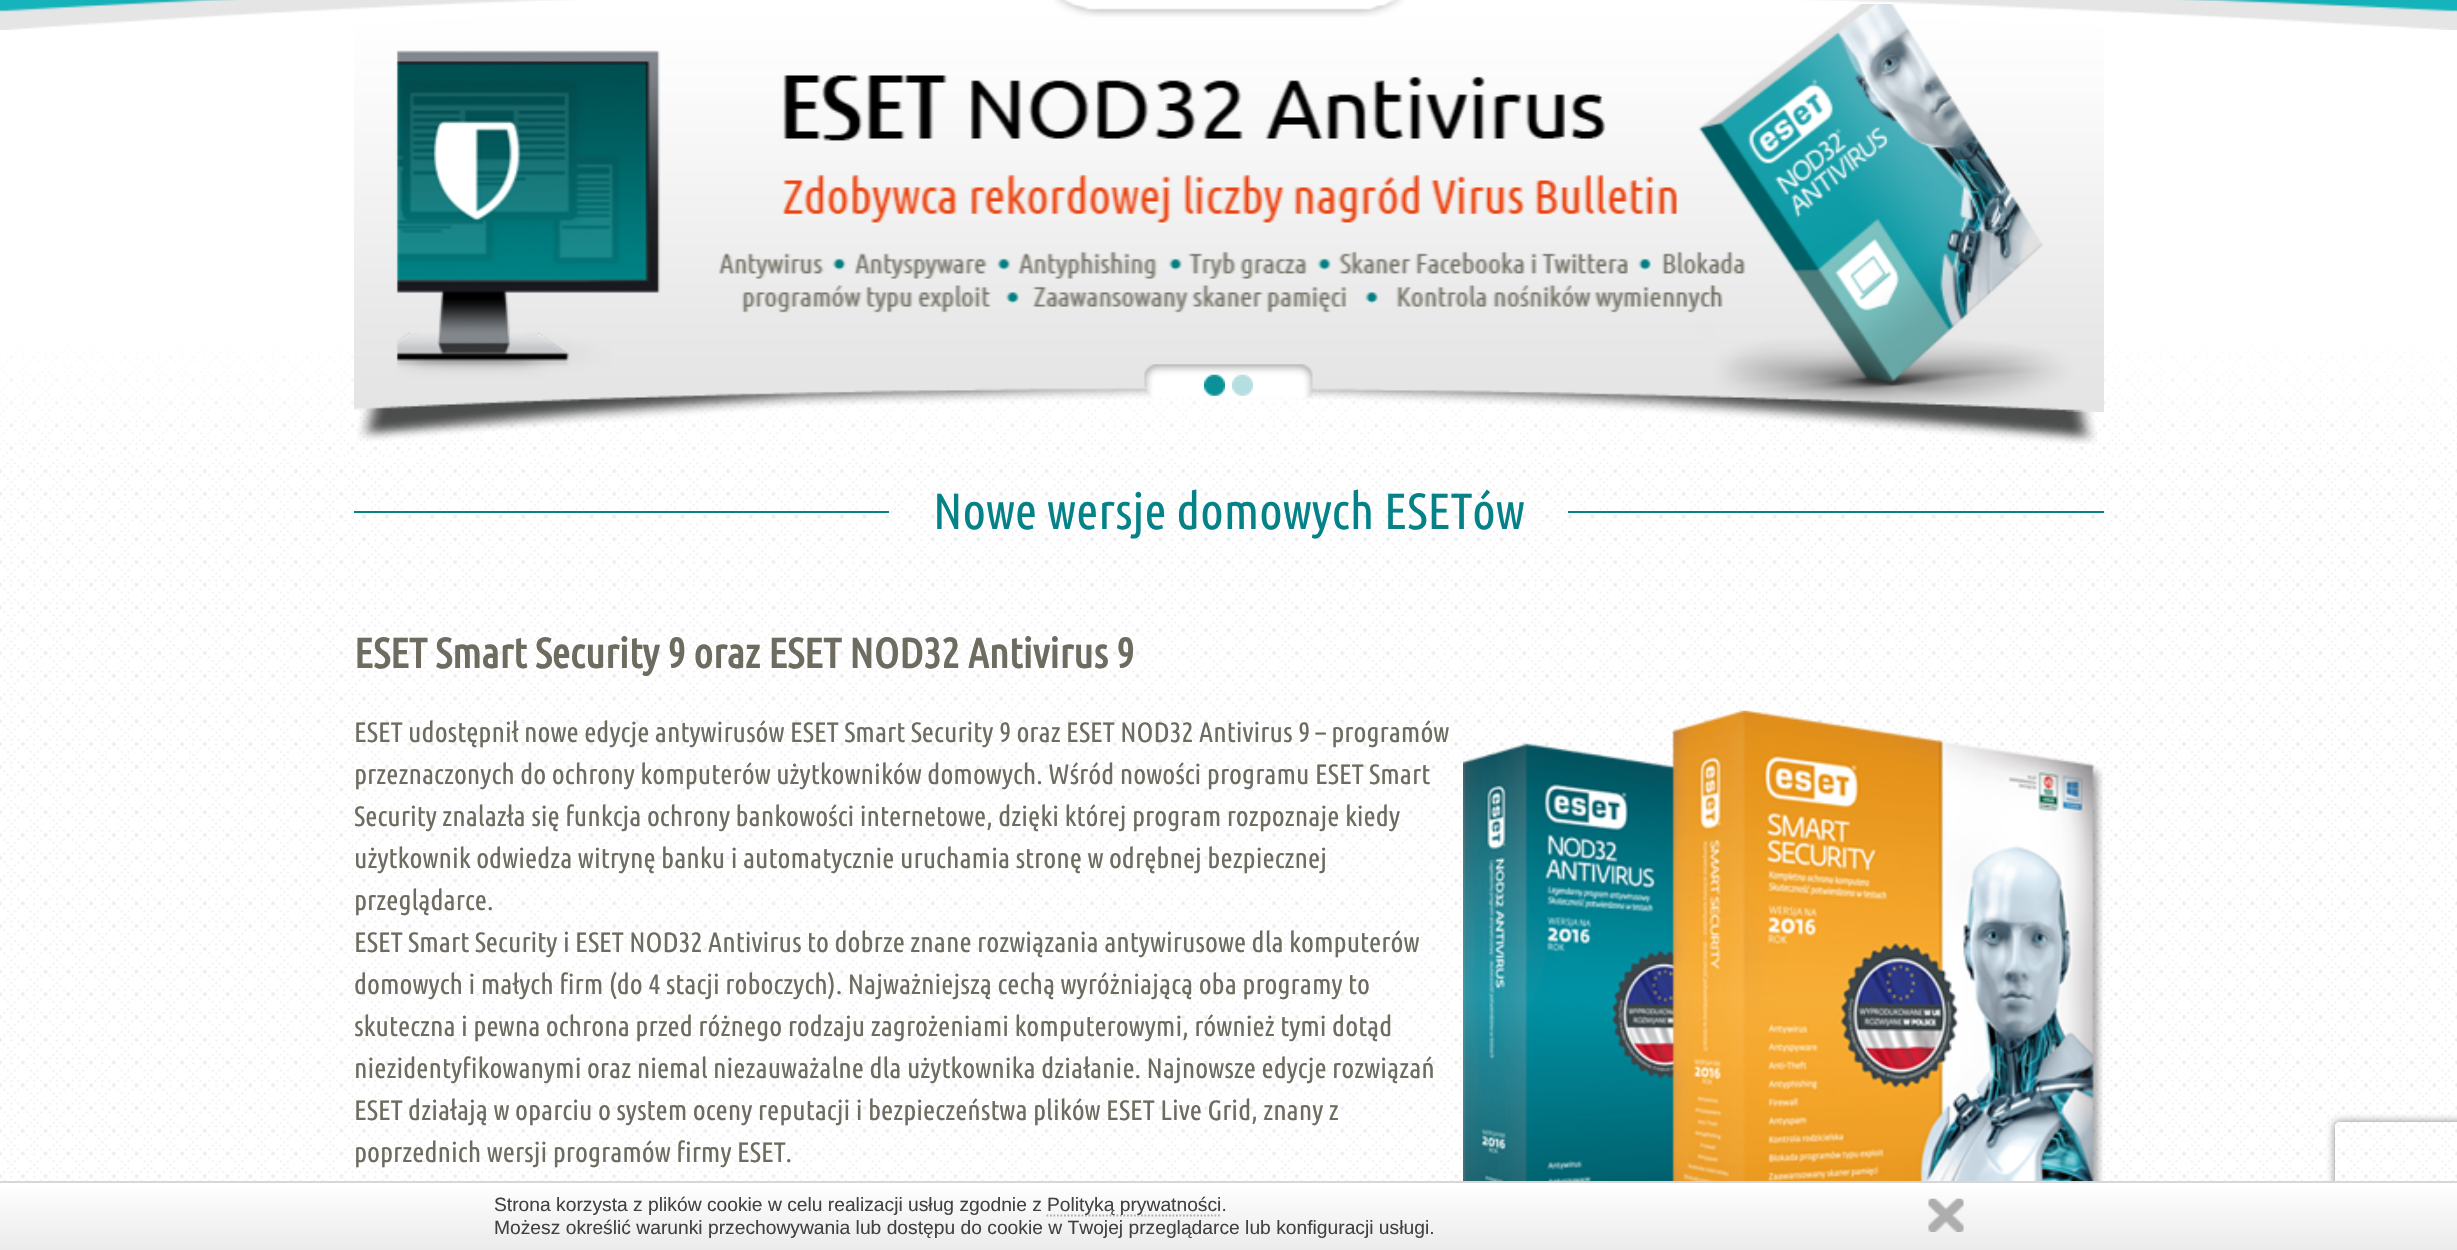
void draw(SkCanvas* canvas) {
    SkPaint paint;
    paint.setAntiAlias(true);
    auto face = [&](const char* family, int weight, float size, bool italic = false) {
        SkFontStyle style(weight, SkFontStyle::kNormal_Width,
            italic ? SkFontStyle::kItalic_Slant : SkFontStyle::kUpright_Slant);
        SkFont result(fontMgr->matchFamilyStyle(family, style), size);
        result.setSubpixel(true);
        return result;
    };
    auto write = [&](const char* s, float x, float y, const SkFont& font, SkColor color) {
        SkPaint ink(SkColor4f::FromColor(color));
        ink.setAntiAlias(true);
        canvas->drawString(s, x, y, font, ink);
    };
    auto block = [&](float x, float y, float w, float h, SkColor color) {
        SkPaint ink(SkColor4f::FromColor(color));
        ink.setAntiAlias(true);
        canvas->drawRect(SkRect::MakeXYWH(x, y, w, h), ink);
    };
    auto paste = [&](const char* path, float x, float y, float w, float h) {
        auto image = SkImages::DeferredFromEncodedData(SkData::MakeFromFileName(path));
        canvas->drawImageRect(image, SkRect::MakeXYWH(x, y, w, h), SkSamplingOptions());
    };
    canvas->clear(SK_ColorWHITE);
    paste("pic1.png", 0, 0, 2457, 30);
    paste("pic2.png", 5, 0, 2446, 30);
    paste("pic4.png", 0, 342, 2457, 115);
    paste("pic5.png", 357, 388, 1740, 56);
    paste("pic6.png", 354, 4, 1750, 408);
    paste("pic3.png", 1054, 0, 350, 17);
    paste("pic7.png", 1144, 364, 169, 35);
    paste("pic8.png", 1204, 374, 21, 22);
    paste("pic9.png", 1232, 374, 21, 22);
    paste("pic10.png", 0, 459, 2457, 722);
    block(354, 511, 535, 2, SkColorSetRGB(5, 130, 136));
    auto kFont1 = face("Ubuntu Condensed", 400, 50.75f);
    write("Nowe wersje domowych ESETów", 933, 529, kFont1, SkColorSetRGB(5, 130, 136));
    block(1568, 511, 536, 2, SkColorSetRGB(5, 130, 136));
    auto kFont2 = face("Ubuntu Condensed", 700, 42);
    write("ESET Smart Security 9 oraz ESET NOD32 Antivirus 9", 354, 668, kFont2, SkColorSetRGB(110, 108, 96));
    auto kFont3 = face("Ubuntu Condensed", 400, 28);
    write("ESET udostępnił nowe edycje antywirusów ESET Smart Security 9 oraz ESET NOD32 Antivirus 9 – programów", 354, 742, kFont3, SkColorSetRGB(110, 108, 96));
    paste("pic11.png", 1463, 710, 640, 471);
    write("przeznaczonych do ochrony komputerów użytkowników domowych. Wśród nowości programu ESET Smart", 354, 784, kFont3, SkColorSetRGB(110, 108, 96));
    write("Security znalazła się funkcja ochrony bankowości internetowe, dzięki której program rozpoznaje kiedy", 354, 826, kFont3, SkColorSetRGB(110, 108, 96));
    write("użytkownik odwiedza witrynę banku i automatycznie uruchamia stronę w odrębnej bezpiecznej", 354, 868, kFont3, SkColorSetRGB(110, 108, 96));
    write("przeglądarce.", 354, 910, kFont3, SkColorSetRGB(110, 108, 96));
    write("ESET Smart Security i ESET NOD32 Antivirus to dobrze znane rozwiązania antywirusowe dla komputerów", 354, 952, kFont3, SkColorSetRGB(110, 108, 96));
    write("domowych i małych firm (do 4 stacji roboczych). Najważniejszą cechą wyróżniającą oba programy to", 354, 994, kFont3, SkColorSetRGB(110, 108, 96));
    write("skuteczna i pewna ochrona przed różnego rodzaju zagrożeniami komputerowymi, również tymi dotąd", 354, 1036, kFont3, SkColorSetRGB(110, 108, 96));
    write("niezidentyfikowanymi oraz niemal niezauważalne dla użytkownika działanie. Najnowsze edycje rozwiązań", 354, 1078, kFont3, SkColorSetRGB(110, 108, 96));
    write("ESET działają w oparciu o system oceny reputacji i bezpieczeństwa plików ESET Live Grid, znany z", 354, 1120, kFont3, SkColorSetRGB(110, 108, 96));
    write("poprzednich wersji programów firmy ESET.", 354, 1162, kFont3, SkColorSetRGB(110, 108, 96));
    canvas->save();
    canvas->clipPath(SkPathBuilder(SkPathFillType::kEvenOdd).moveTo(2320, 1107).lineTo(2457, 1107).lineTo(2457, 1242).lineTo(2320, 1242).close().moveTo(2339, 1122).lineTo(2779, 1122).cubicTo(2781, 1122, 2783, 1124, 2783, 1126).lineTo(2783, 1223).cubicTo(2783, 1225, 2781, 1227, 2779, 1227).lineTo(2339, 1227).cubicTo(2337, 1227, 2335, 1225, 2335, 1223).lineTo(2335, 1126).cubicTo(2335, 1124, 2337, 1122, 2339, 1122).close().detach(), true);
    paint.setColor(SkColorSetRGB(128, 128, 128));
    paint.setMaskFilter(SkMaskFilter::MakeBlur(kNormal_SkBlurStyle, 4.5f));
    canvas->drawRoundRect(SkRect::MakeXYWH(2335, 1122, 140, 105), 4, 4, paint);
    paint.setMaskFilter(nullptr);
    canvas->restore();
    {
        const SkColor colors[] = {SK_ColorWHITE, SkColorSetRGB(235, 235, 235)};
        const float stops[] = {0, 1};
        const SkPoint ends[] = {{1229, 1183}, {1229, 1250}};
        paint.setShader(SkGradientShader::MakeLinear(ends, colors, stops, 2, SkTileMode::kClamp));
        paint.setAlpha(255);
    }
    canvas->drawRect(SkRect::MakeXYWH(0, 1183, 2457, 67), paint);
    block(0, 1181, 2457, 2, SkColorSetRGB(215, 215, 215));
    auto kFont4 = face("Liberation Sans", 400, 19.25f);
    write("Strona korzysta z plików cookie w celu realizacji usług zgodnie z", 494, 1211, kFont4, SkColorSetRGB(65, 65, 65));
    paint.setStyle(SkPaint::kStroke_Style);
    paint.setStrokeWidth(1.8f);
    paint.setShader(nullptr);
    paint.setColor(SkColorSetRGB(174, 174, 174));
    paint.setPathEffect(SkDashPathEffect::Make({{1.75f, 1.75f}}, 0));
    canvas->drawPath(SkPathBuilder().moveTo(1046.5f, 1215.5f).lineTo(1221.5f, 1215.5f).detach(), paint);
    paint.setPathEffect(nullptr);
    write("Polityką prywatności.", 1047, 1211, kFont4, SkColorSetRGB(65, 65, 65));
    paste("pic12.png", 1928, 1198, 36, 34);
    write("Możesz określić warunki przechowywania lub dostępu do cookie w Twojej przeglądarce lub konfiguracji usługi.", 494, 1234, kFont4, SkColorSetRGB(65, 65, 65));
}
